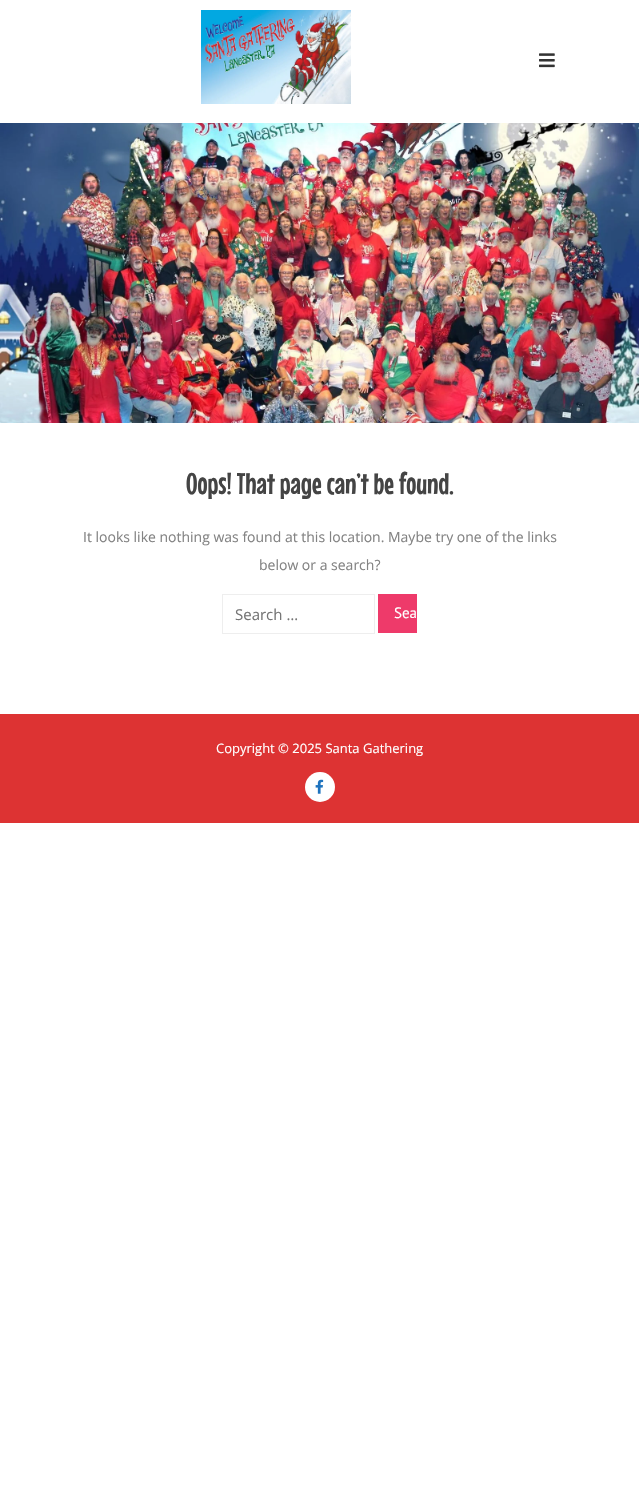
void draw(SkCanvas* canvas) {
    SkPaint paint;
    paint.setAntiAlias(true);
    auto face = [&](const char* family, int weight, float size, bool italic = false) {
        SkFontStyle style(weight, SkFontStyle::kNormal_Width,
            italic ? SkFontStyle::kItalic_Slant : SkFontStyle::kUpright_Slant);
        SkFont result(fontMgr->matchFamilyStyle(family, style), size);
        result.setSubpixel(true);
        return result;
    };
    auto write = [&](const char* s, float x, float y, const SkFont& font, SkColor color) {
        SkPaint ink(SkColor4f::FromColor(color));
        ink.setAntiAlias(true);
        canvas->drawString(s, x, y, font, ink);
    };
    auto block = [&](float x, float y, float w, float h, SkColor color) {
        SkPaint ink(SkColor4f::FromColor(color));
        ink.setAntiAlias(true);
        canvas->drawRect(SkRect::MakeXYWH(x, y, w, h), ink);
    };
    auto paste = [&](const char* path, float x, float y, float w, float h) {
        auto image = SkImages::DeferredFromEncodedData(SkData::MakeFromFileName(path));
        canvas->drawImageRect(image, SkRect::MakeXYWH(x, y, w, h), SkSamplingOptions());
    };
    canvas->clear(SK_ColorWHITE);
    paste("pic1.png", 201, 10, 150, 94);
    paste("pic2.png", 539, 53, 16, 15);
    paste("pic3.png", 0, 123, 639, 300);
    auto kFont1 = face("Mouse Memoirs", 400, 30);
    write("Oops! That page can’t be found.", 186, 494, kFont1, SkColorSetRGB(68, 68, 68));
    auto kFont2 = face("Open Sans", 400, 14);
    write("It looks like nothing was found at this location. Maybe try one of the links", 83, 542, kFont2, SkColorSetRGB(131, 131, 131));
    write("below or a search?", 259, 570, kFont2, SkColorSetRGB(131, 131, 131));
    paint.setStyle(SkPaint::kStroke_Style);
    paint.setStrokeWidth(1);
    paint.setColor(SkColorSetRGB(238, 238, 238));
    canvas->drawRect(SkRect::MakeXYWH(222.5f, 594.5f, 152, 39), paint);
    auto kFont3 = face("Open Sans", 400, 15);
    write("Search …", 235, 620, kFont3, SkColorSetRGB(117, 117, 117));
    block(378, 594, 39, 39, SkColorSetRGB(238, 58, 106));
    auto kFont4 = face("PT Sans", 400, 15);
    write("Sea", 394, 618, kFont4, SK_ColorWHITE);
    block(0, 714, 639, 109, SkColorSetRGB(221, 51, 51));
    auto kFont5 = face("Open Sans", 400, 13);
    write("Copyright © 2025 Santa Gathering", 216, 753, kFont5, SK_ColorWHITE);
    paint.setStyle(SkPaint::kFill_Style);
    paint.setColor(SK_ColorWHITE);
    canvas->drawCircle(320, 787, 15, paint);
    paste("pic4.png", 315, 779, 9, 15);
}
